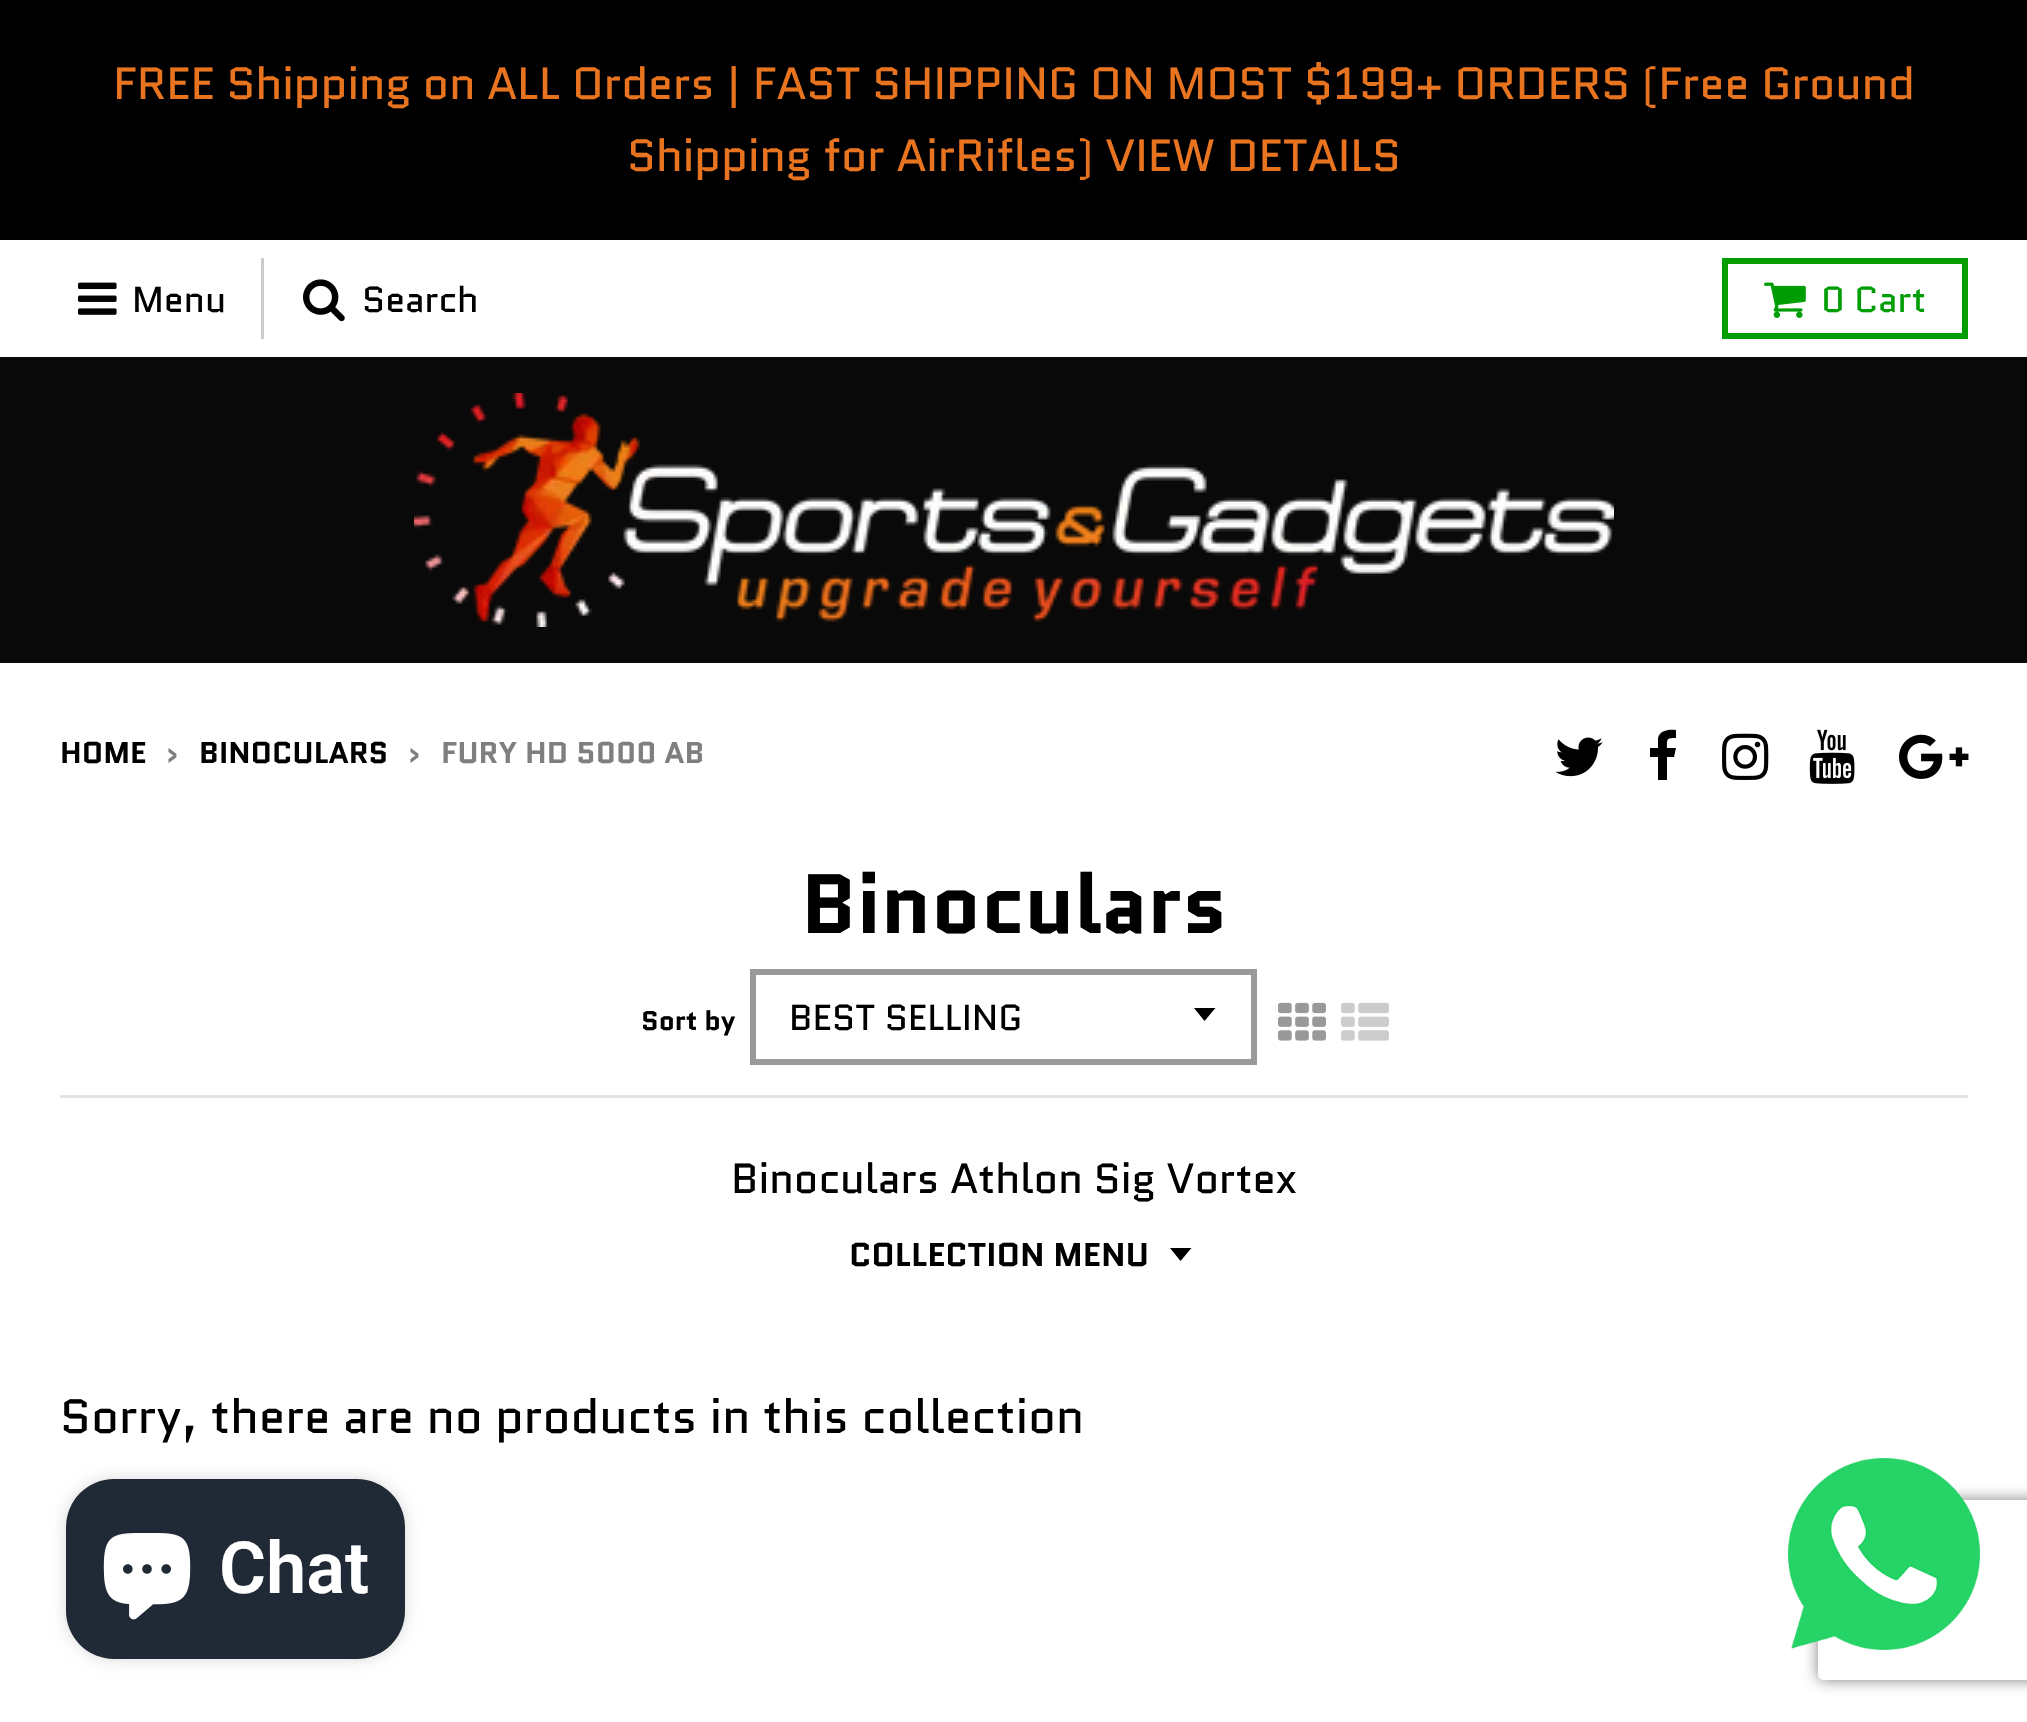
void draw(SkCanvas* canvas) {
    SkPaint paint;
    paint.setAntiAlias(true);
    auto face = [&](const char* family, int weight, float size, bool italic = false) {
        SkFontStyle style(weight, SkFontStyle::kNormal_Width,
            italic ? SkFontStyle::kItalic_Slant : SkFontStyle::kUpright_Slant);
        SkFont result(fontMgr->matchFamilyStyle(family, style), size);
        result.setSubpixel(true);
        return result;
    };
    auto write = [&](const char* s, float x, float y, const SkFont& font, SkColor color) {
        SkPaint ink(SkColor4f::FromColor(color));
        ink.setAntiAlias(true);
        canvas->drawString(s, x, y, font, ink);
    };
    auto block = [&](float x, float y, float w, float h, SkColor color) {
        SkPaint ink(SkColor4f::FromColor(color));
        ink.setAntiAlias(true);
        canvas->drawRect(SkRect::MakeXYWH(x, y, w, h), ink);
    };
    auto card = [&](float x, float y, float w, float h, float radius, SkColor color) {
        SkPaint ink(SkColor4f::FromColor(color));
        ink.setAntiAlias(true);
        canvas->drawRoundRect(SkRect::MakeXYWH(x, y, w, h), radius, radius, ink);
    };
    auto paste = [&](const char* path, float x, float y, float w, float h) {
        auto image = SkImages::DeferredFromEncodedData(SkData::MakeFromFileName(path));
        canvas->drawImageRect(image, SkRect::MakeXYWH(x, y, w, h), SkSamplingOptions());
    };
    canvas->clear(SK_ColorWHITE);
    block(0, 0, 2027, 240, SK_ColorBLACK);
    auto kFont1 = face("Quantico", 400, 45);
    write("FREE Shipping on ALL Orders | FAST SHIPPING ON MOST $199+ ORDERS (Free Ground", 113, 99, kFont1, SkColorSetRGB(232, 116, 32));
    write("Shipping for AirRifles) VIEW DETAILS", 627, 171, kFont1, SkColorSetRGB(232, 116, 32));
    block(261, 258, 3, 81, SkColorSetRGB(204, 204, 204));
    paste("pic1.png", 78, 282, 39, 33);
    auto kFont2 = face("Quantico", 400, 36);
    write("Menu", 132, 312, kFont2, SK_ColorBLACK);
    paste("pic2.png", 303, 279, 42, 43);
    write("Search", 362, 312, kFont2, SK_ColorBLACK);
    paint.setStyle(SkPaint::kStroke_Style);
    paint.setStrokeWidth(6);
    paint.setColor(SkColorSetRGB(0, 157, 5));
    canvas->drawRect(SkRect::MakeXYWH(1725, 261, 240, 75), paint);
    paste("pic3.png", 1764, 282, 42, 36);
    write("0 Cart", 1821, 312, kFont2, SkColorSetRGB(0, 157, 5));
    block(0, 357, 2027, 306, SkColorSetRGB(10, 9, 9));
    paste("pic4.png", 414, 393, 1200, 234);
    auto kFont3 = face("Quantico", 700, 30);
    write("HOME", 60, 763, kFont3, SK_ColorBLACK);
    write("›", 166, 763, kFont3, SkColorSetRGB(127, 127, 127));
    write("BINOCULARS", 199, 763, kFont3, SK_ColorBLACK);
    write("›", 408, 763, kFont3, SkColorSetRGB(127, 127, 127));
    write("FURY HD 5000 AB", 441, 763, kFont3, SkColorSetRGB(127, 127, 127));
    paste("pic5.png", 1555, 737, 48, 40);
    paint.setStyle(SkPaint::kFill_Style);
    paint.setColor(SK_ColorBLACK);
    canvas->drawPath(SkPathBuilder().moveTo(1676, 730).lineTo(1676, 738).cubicTo(1666, 738, 1667, 739, 1667, 748).lineTo(1676, 748).lineTo(1674, 757).lineTo(1667, 757).lineTo(1667, 780).lineTo(1658, 780).lineTo(1658, 757).lineTo(1650, 757).lineTo(1650, 748).lineTo(1658, 748).lineTo(1658, 738).cubicTo(1660, 730, 1669, 729, 1676, 730).close().detach(), paint);
    paste("pic6.png", 1722, 733, 47, 47);
    paste("pic7.png", 1809, 729, 46, 55);
    paste("pic8.png", 1899, 734, 70, 45);
    block(60, 1095, 1908, 3, SkColorSetRGB(229, 229, 229));
    auto kFont4 = face("Quantico", 700, 84);
    write("Binoculars", 801, 933, kFont4, SK_ColorBLACK);
    auto kFont5 = face("Quantico", 700, 27);
    write("Sort by", 641, 1030, kFont5, SK_ColorBLACK);
    canvas->drawPath(SkPathBuilder().moveTo(1194, 1008).lineTo(1204.5f, 1021).cubicTo(1205, 1021, 1214, 1009.5f, 1215.5f, 1008).close().detach(), paint);
    paint.setStyle(SkPaint::kStroke_Style);
    paint.setColor(SkColorSetRGB(153, 153, 153));
    canvas->drawRect(SkRect::MakeXYWH(753, 972, 501, 90), paint);
    write("BEST SELLING", 789, 1030, kFont2, SK_ColorBLACK);
    paste("pic9.png", 1278, 1002, 48, 39);
    paste("pic10.png", 1341, 1002, 48, 39);
    auto kFont6 = face("Quantico", 400, 42);
    write("Binoculars Athlon Sig Vortex", 731, 1193, kFont6, SK_ColorBLACK);
    auto kFont7 = face("Quantico", 700, 33);
    write("COLLECTION MENU", 849, 1266, kFont7, SK_ColorBLACK);
    paint.setStyle(SkPaint::kFill_Style);
    paint.setColor(SK_ColorBLACK);
    canvas->drawPath(SkPathBuilder().moveTo(1170, 1248).lineTo(1180.5f, 1261).cubicTo(1181, 1261, 1190, 1249.5f, 1191.5f, 1248).close().detach(), paint);
    auto kFont8 = face("Quantico", 400, 48);
    write("Sorry, there are no products in this collection", 60, 1433, kFont8, SK_ColorBLACK);
    canvas->save();
    canvas->clipPath(SkPathBuilder(SkPathFillType::kEvenOdd).moveTo(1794, 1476).lineTo(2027, 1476).lineTo(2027, 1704).lineTo(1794, 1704).close().moveTo(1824, 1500).lineTo(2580, 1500).cubicTo(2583.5f, 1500, 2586, 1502.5f, 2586, 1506).lineTo(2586, 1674).cubicTo(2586, 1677.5f, 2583.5f, 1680, 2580, 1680).lineTo(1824, 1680).cubicTo(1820.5f, 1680, 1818, 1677.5f, 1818, 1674).lineTo(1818, 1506).cubicTo(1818, 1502.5f, 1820.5f, 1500, 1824, 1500).close().detach(), true);
    paint.setColor(SkColorSetRGB(128, 128, 128));
    paint.setMaskFilter(SkMaskFilter::MakeBlur(kNormal_SkBlurStyle, 7.5f));
    canvas->drawRoundRect(SkRect::MakeXYWH(1818, 1500, 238, 180), 6, 6, paint);
    paint.setMaskFilter(nullptr);
    canvas->restore();
    paste("pic11.png", 1788, 1458, 192, 192);
    paint.setColor(SkColorSetARGB(38, 0, 0, 0));
    paint.setMaskFilter(SkMaskFilter::MakeBlur(kNormal_SkBlurStyle, 7.5f));
    canvas->drawRoundRect(SkRect::MakeXYWH(66, 1479, 339, 180), 48, 48, paint);
    paint.setMaskFilter(nullptr);
    card(66, 1479, 339, 180, 48, SkColorSetRGB(32, 42, 54));
    paste("pic12.png", 103, 1533, 88, 87);
    auto kFont9 = face("Roboto", 600, 72);
    write("Chat", 219, 1593, kFont9, SK_ColorWHITE);
}
